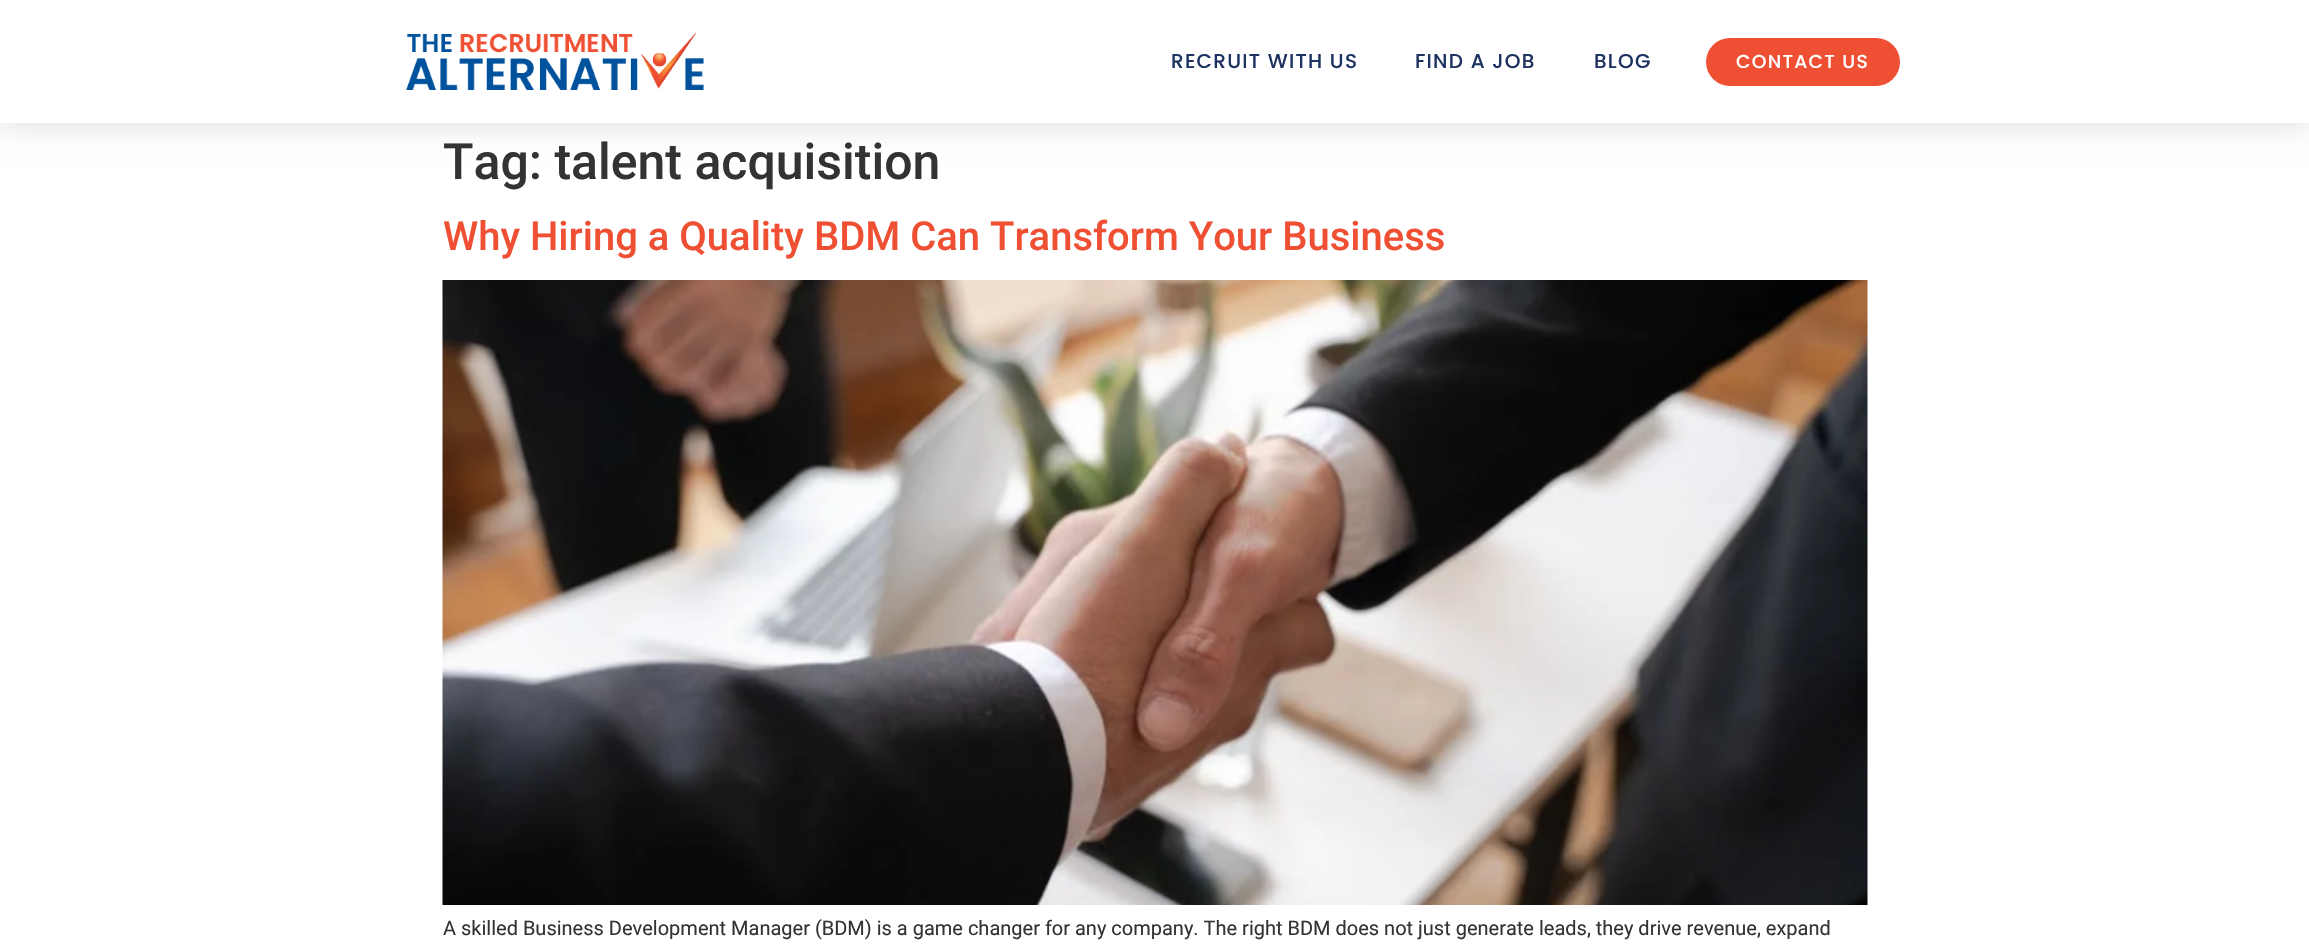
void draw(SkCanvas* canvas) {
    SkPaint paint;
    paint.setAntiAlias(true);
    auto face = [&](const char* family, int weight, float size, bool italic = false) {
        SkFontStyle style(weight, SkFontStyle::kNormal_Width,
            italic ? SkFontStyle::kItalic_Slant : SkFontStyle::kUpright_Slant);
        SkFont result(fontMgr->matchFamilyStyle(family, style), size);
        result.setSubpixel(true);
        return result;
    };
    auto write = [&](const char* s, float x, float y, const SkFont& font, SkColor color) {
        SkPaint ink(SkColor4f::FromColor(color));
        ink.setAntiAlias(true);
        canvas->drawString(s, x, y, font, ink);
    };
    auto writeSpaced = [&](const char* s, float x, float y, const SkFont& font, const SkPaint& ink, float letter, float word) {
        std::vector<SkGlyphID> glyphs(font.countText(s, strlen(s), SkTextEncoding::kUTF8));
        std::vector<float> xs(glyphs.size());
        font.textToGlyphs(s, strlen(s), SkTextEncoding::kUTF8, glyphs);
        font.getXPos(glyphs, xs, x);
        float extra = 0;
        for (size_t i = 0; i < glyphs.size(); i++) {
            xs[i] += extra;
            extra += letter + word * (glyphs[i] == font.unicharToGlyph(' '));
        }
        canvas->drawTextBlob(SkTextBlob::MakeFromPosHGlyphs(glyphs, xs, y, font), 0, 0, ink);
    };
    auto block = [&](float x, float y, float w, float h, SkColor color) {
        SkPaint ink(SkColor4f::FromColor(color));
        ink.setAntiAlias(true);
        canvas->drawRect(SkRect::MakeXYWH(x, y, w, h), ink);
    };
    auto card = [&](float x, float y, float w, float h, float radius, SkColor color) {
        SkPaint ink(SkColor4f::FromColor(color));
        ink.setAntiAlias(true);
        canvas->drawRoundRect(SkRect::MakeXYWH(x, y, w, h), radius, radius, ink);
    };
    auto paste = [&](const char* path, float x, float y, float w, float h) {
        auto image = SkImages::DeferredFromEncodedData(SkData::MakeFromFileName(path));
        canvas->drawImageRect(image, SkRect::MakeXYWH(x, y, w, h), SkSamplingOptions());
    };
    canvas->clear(SK_ColorWHITE);
    paint.setColor(SkColorSetARGB(38, 0, 0, 0));
    paint.setMaskFilter(SkMaskFilter::MakeBlur(kNormal_SkBlurStyle, 15));
    canvas->drawRect(SkRect::MakeXYWH(0, 0, 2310, 123), paint);
    paint.setMaskFilter(nullptr);
    block(0, 0, 2309, 123, SK_ColorWHITE);
    paste("pic1.png", 405, 32, 299, 58);
    auto kFont1 = face("Poppins", 500, 20);
    paint.setColor(SkColorSetRGB(30, 51, 98));
    writeSpaced("RECRUIT WITH US", 1171, 68, kFont1, paint, 1.25f, 0);
    writeSpaced("FIND A JOB", 1415, 68, kFont1, paint, 1.25f, 0);
    writeSpaced("BLOG", 1594, 68, kFont1, paint, 1.25f, 0);
    card(1706, 38, 194, 48, 24, SkColorSetRGB(239, 80, 51));
    auto kFont2 = face("Poppins", 500, 18.75f);
    paint.setColor(SK_ColorWHITE);
    writeSpaced("CONTACT US", 1736, 68, kFont2, paint, 1.25f, 0);
    auto kFont3 = face("Roboto", 500, 50);
    write("Tag: talent acquisition", 443, 179, kFont3, SkColorSetRGB(51, 51, 51));
    auto kFont4 = face("Roboto", 500, 40);
    write("Why Hiring a Quality BDM Can Transform Your Business", 443, 250, kFont4, SkColorSetRGB(239, 80, 51));
    paste("pic2.png", 442, 280, 1426, 625);
    auto kFont5 = face("Roboto", 400, 20);
    write("A skilled Business Development Manager (BDM) is a game changer for any company. The right BDM does not just generate leads, they drive revenue, expand", 443, 935, kFont5, SkColorSetRGB(51, 51, 51));
}
